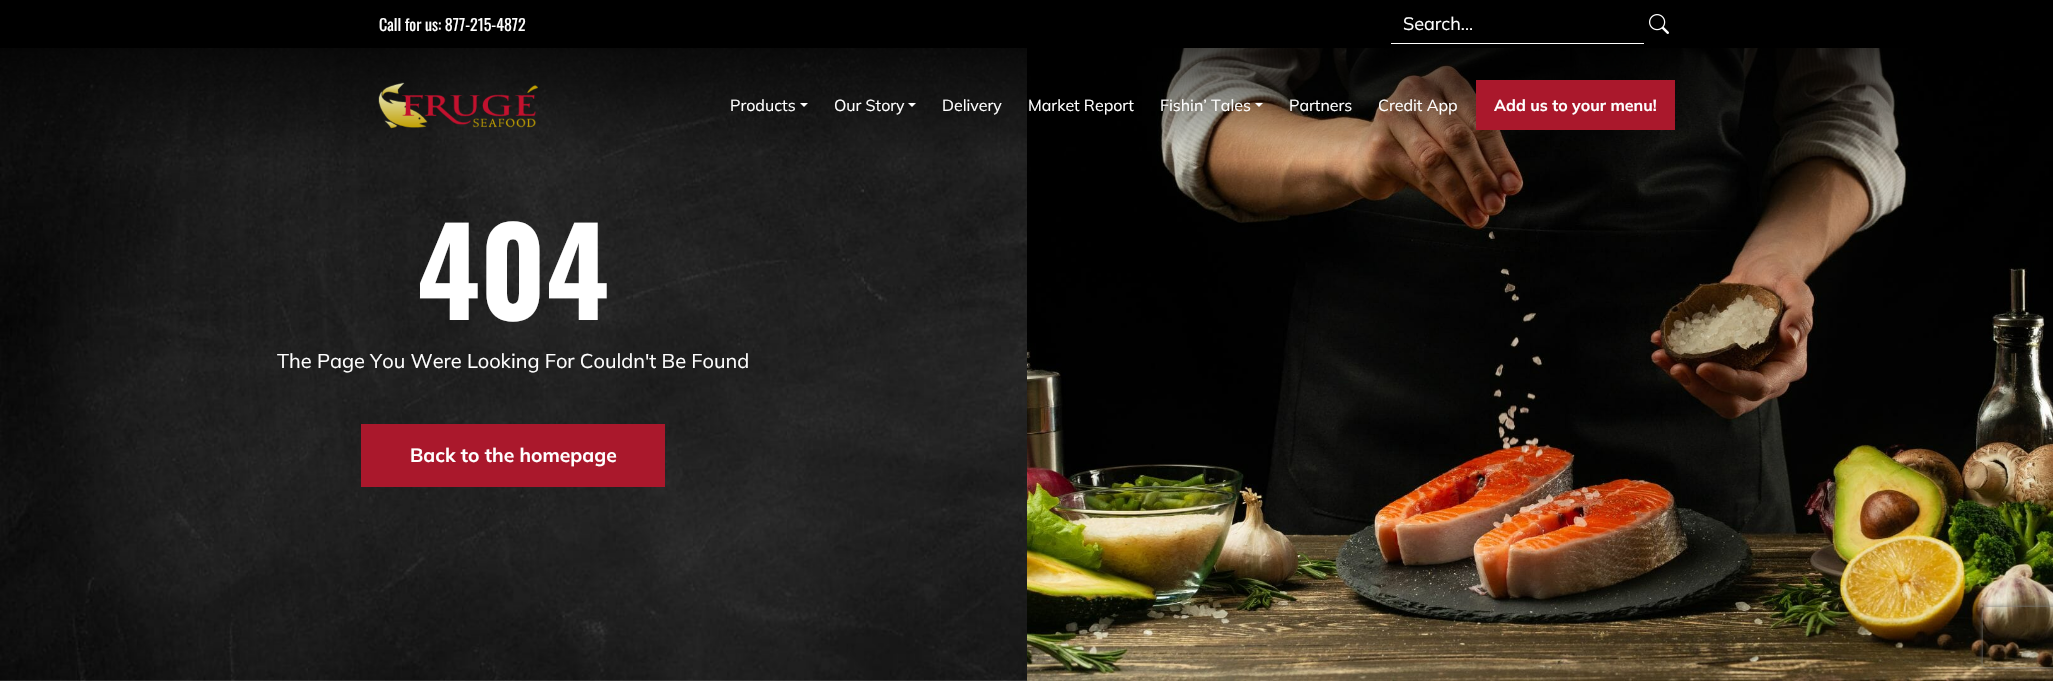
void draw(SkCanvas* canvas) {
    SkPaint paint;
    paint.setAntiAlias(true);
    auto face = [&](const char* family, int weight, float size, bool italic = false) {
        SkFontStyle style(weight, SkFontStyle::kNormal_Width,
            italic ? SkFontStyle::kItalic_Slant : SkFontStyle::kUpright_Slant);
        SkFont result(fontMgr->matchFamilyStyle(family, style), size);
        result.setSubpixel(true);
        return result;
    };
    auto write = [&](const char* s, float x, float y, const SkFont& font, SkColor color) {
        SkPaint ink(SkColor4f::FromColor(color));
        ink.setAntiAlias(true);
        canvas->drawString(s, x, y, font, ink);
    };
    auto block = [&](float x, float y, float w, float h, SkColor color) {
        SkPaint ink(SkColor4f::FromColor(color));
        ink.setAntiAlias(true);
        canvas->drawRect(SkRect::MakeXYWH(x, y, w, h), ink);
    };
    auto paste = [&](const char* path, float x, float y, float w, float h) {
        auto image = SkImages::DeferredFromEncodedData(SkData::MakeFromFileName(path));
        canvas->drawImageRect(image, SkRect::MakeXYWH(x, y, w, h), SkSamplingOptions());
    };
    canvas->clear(SK_ColorWHITE);
    paste("pic3.png", 0, 48, 1027, 633);
    paste("pic4.png", 1027, 48, 1026, 633);
    {
        const SkColor colors[] = {SK_ColorBLACK, SkColorSetARGB(0, 0, 0, 0)};
        const float stops[] = {0, 1};
        const SkPoint ends[] = {{1027, 0}, {1027, 162}};
        paint.setShader(SkGradientShader::MakeLinear(ends, colors, stops, 2, SkTileMode::kClamp));
        paint.setAlpha(255);
    }
    canvas->drawRect(SkRect::MakeXYWH(0, 48, 1899, 111), paint);
    block(0, 0, 2053, 48, SK_ColorBLACK);
    auto kFont1 = face("Oswald", 400, 16);
    write("Call for us: 877-215-4872", 379, 31, kFont1, SK_ColorWHITE);
    block(1391, 43, 253, 1, SK_ColorWHITE);
    auto kFont2 = face("Mulish", 400, 18);
    write("Search...", 1403, 30, kFont2, SK_ColorWHITE);
    paste("pic1.png", 1649, 14, 20, 20);
    paste("pic2.png", 378, 82, 160, 47);
    auto kFont3 = face("Mulish", 400, 16);
    write("Products", 730, 111, kFont3, SK_ColorWHITE);
    paint.setShader(nullptr);
    paint.setColor(SK_ColorWHITE);
    canvas->drawPath(SkPathBuilder().moveTo(800, 103).lineTo(808, 103).lineTo(804, 107).close().detach(), paint);
    write("Our Story", 834, 111, kFont3, SK_ColorWHITE);
    canvas->drawPath(SkPathBuilder().moveTo(908, 103).lineTo(916, 103).lineTo(912, 107).close().detach(), paint);
    write("Delivery", 942, 111, kFont3, SK_ColorWHITE);
    write("Market Report", 1028, 111, kFont3, SK_ColorWHITE);
    write("Fishin’ Tales", 1160, 111, kFont3, SK_ColorWHITE);
    canvas->drawPath(SkPathBuilder().moveTo(1255, 103).lineTo(1263, 103).lineTo(1259, 107).close().detach(), paint);
    write("Partners", 1289, 111, kFont3, SK_ColorWHITE);
    write("Credit App", 1378, 111, kFont3, SK_ColorWHITE);
    block(1476, 80, 199, 50, SkColorSetRGB(170, 24, 44));
    auto kFont4 = face("Mulish", 700, 16);
    write("Add us to your menu!", 1494, 111, kFont4, SK_ColorWHITE);
    auto kFont5 = face("Oswald", 700, 120);
    write("404", 417, 320, kFont5, SK_ColorWHITE);
    auto kFont6 = face("Mulish", 400, 20);
    write("The Page You Were Looking For Couldn't Be Found", 277, 368, kFont6, SK_ColorWHITE);
    block(361, 424, 304, 63, SkColorSetRGB(170, 24, 44));
    auto kFont7 = face("Mulish", 700, 19.25f);
    write("Back to the homepage", 410, 462, kFont7, SK_ColorWHITE);
    canvas->save();
    canvas->clipPath(SkPathBuilder(SkPathFillType::kEvenOdd).moveTo(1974, 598).lineTo(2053, 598).lineTo(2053, 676).lineTo(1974, 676).close().moveTo(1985, 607).lineTo(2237, 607).cubicTo(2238, 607, 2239, 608, 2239, 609).lineTo(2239, 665).cubicTo(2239, 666, 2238, 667, 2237, 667).lineTo(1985, 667).cubicTo(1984, 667, 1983, 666, 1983, 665).lineTo(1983, 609).cubicTo(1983, 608, 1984, 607, 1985, 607).close().detach(), true);
    paint.setColor(SkColorSetRGB(128, 128, 128));
    paint.setMaskFilter(SkMaskFilter::MakeBlur(kNormal_SkBlurStyle, 2.5f));
    canvas->drawRoundRect(SkRect::MakeXYWH(1983, 607, 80, 60), 2, 2, paint);
    paint.setMaskFilter(nullptr);
    canvas->restore();
}
